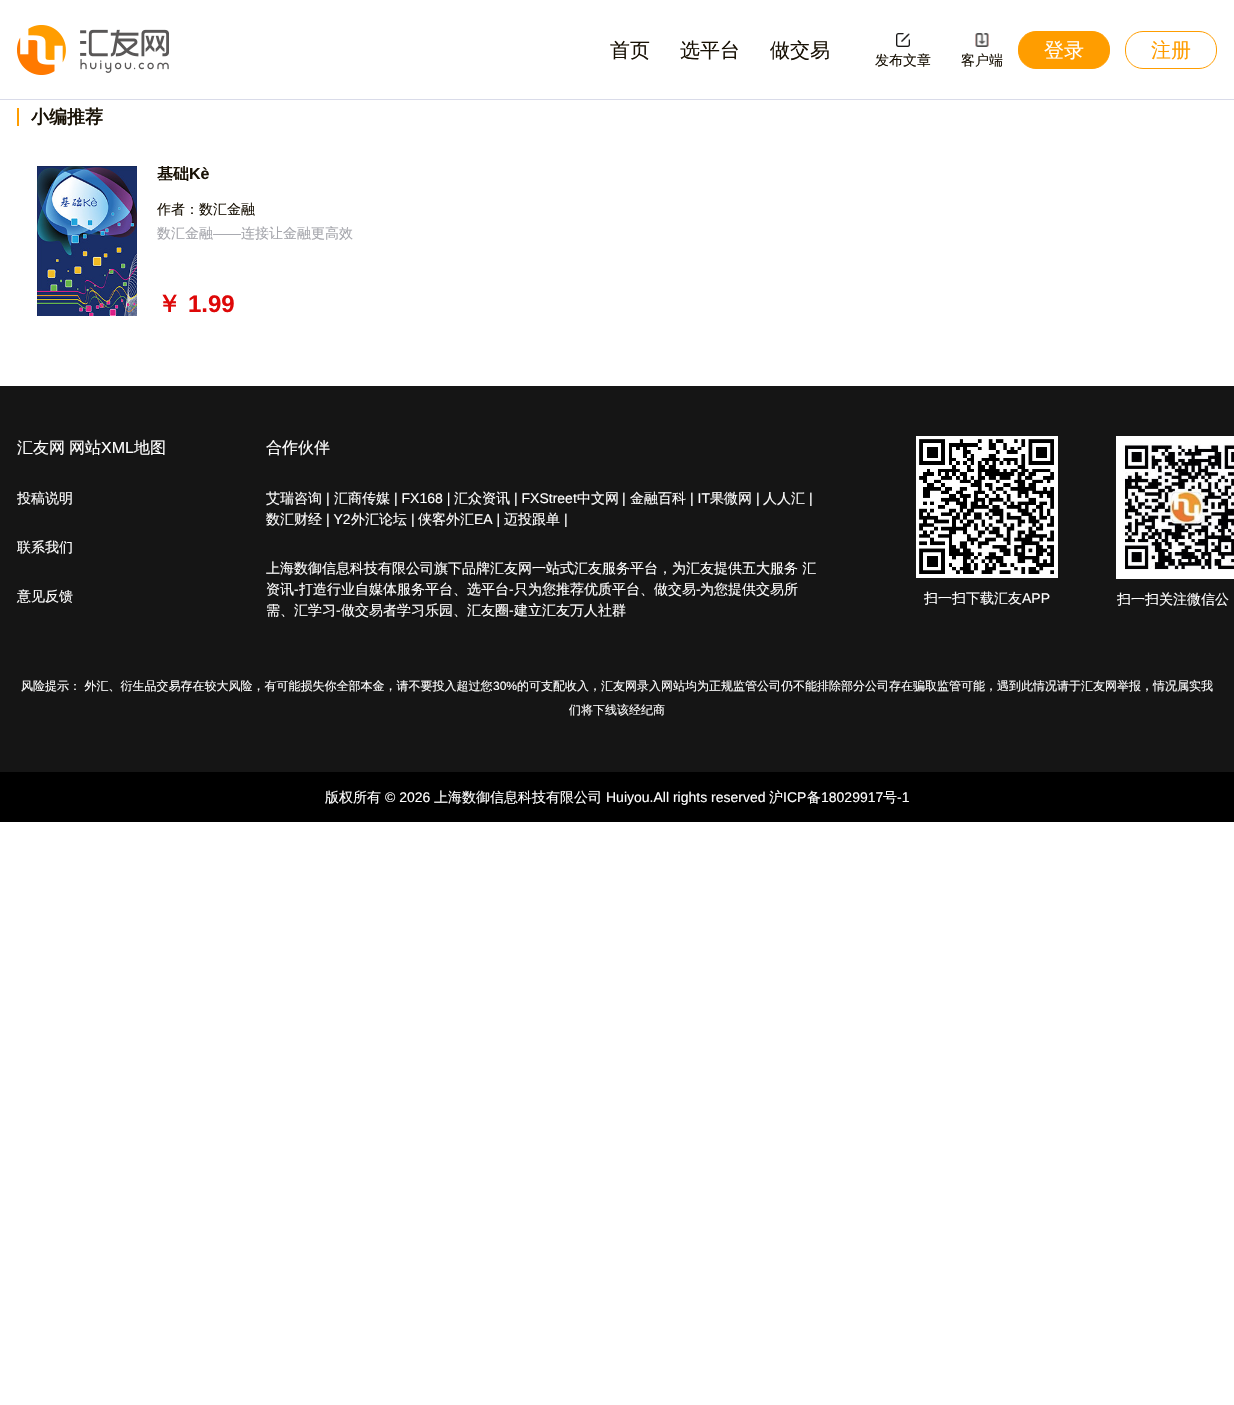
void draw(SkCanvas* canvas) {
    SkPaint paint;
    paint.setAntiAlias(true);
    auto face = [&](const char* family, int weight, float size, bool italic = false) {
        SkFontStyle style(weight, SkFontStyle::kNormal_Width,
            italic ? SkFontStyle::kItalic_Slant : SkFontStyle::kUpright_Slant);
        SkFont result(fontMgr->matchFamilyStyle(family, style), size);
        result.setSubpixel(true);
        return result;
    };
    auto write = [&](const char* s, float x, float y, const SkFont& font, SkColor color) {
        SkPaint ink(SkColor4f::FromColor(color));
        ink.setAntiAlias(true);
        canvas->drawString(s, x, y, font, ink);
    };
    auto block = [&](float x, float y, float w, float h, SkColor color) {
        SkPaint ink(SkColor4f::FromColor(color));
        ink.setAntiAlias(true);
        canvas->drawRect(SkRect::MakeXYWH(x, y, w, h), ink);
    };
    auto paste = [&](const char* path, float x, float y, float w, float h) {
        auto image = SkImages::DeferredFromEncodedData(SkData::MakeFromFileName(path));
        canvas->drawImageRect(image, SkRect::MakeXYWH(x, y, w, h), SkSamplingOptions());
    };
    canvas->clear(SK_ColorWHITE);
    paste("pic1.png", 17, 25, 152, 50);
    auto kFont1 = face("WenQuanYi Zen Hei", 500, 20);
    write("首页", 610, 57, kFont1, SkColorSetRGB(24, 17, 5));
    write("选平台", 680, 57, kFont1, SkColorSetRGB(24, 17, 5));
    write("做交易", 770, 57, kFont1, SkColorSetRGB(24, 17, 5));
    paste("pic2.png", 896, 33, 14, 14);
    auto kFont2 = face("WenQuanYi Zen Hei", 500, 14);
    write("发布文章", 875, 65, kFont2, SkColorSetRGB(24, 17, 5));
    paste("pic3.png", 975, 33, 14, 14);
    write("客户端", 961, 65, kFont2, SkColorSetRGB(24, 17, 5));
    paint.setColor(SkColorSetRGB(255, 157, 0));
    canvas->drawRoundRect(SkRect::MakeXYWH(1018.5f, 31.5f, 91, 37), 17.5f, 17.5f, paint);
    paint.setStyle(SkPaint::kStroke_Style);
    paint.setStrokeWidth(1);
    canvas->drawRoundRect(SkRect::MakeXYWH(1018.5f, 31.5f, 91, 37), 17.5f, 17.5f, paint);
    write("登录", 1044, 57, kFont1, SK_ColorWHITE);
    canvas->drawRoundRect(SkRect::MakeXYWH(1125.5f, 31.5f, 91, 37), 17.5f, 17.5f, paint);
    write("注册", 1151, 57, kFont1, SkColorSetRGB(255, 157, 0));
    block(0, 99, 1234, 1, SkColorSetRGB(217, 219, 233));
    block(17, 108, 2, 18, SkColorSetRGB(255, 157, 0));
    auto kFont3 = face("WenQuanYi Zen Hei", 700, 18);
    write("小编推荐", 31, 123, kFont3, SkColorSetRGB(24, 17, 5));
    paste("pic4.png", 37, 166, 100, 150);
    canvas->save();
    canvas->clipRect(SkRect::MakeXYWH(157, 166, 215, 16));
    auto kFont4 = face("WenQuanYi Zen Hei", 700, 16);
    write("基础", 157, 179, kFont4, SkColorSetRGB(24, 17, 5));
    canvas->restore();
    auto kFont5 = face("Liberation Sans", 700, 16);
    write("Kè", 189, 179, kFont5, SkColorSetRGB(24, 17, 5));
    write("作者：数汇金融", 157, 214, kFont2, SkColorSetRGB(24, 17, 5));
    write("数汇金融", 157, 238, kFont2, SkColorSetRGB(165, 166, 172));
    auto kFont6 = face("Liberation Sans", 400, 14);
    write("——", 213, 238, kFont6, SkColorSetRGB(165, 166, 172));
    write("连接让金融更高效", 241, 238, kFont2, SkColorSetRGB(165, 166, 172));
    auto kFont7 = face("WenQuanYi Zen Hei", 700, 24);
    write("￥", 157, 312, kFont7, SkColorSetRGB(222, 8, 8));
    auto kFont8 = face("Liberation Sans", 700, 24);
    write("1.99", 188, 312, kFont8, SkColorSetRGB(222, 8, 8));
    block(0, 386, 1234, 386, SkColorSetRGB(21, 21, 21));
    auto kFont9 = face("WenQuanYi Zen Hei", 500, 16);
    write("汇友网", 17, 453, kFont9, SK_ColorWHITE);
    write("网站", 69, 453, kFont9, SK_ColorWHITE);
    auto kFont10 = face("Liberation Sans", 400, 16);
    write("XML", 101, 453, kFont10, SK_ColorWHITE);
    write("地图", 134, 453, kFont9, SK_ColorWHITE);
    write("投稿说明", 17, 503, kFont2, SK_ColorWHITE);
    write("联系我们", 17, 552, kFont2, SK_ColorWHITE);
    write("意见反馈", 17, 601, kFont2, SK_ColorWHITE);
    write("合作伙伴", 266, 453, kFont9, SK_ColorWHITE);
    write("艾瑞咨询", 266, 503, kFont2, SK_ColorWHITE);
    write("|", 326, 503, kFont6, SK_ColorWHITE);
    write("汇商传媒", 334, 503, kFont2, SK_ColorWHITE);
    write("| FX168 |", 394, 503, kFont6, SK_ColorWHITE);
    write("汇众资讯", 454, 503, kFont2, SK_ColorWHITE);
    write("| FXStreet", 514, 503, kFont6, SK_ColorWHITE);
    write("中文网", 577, 503, kFont2, SK_ColorWHITE);
    write("|", 622, 503, kFont6, SK_ColorWHITE);
    write("金融百科", 630, 503, kFont2, SK_ColorWHITE);
    write("| IT", 690, 503, kFont6, SK_ColorWHITE);
    write("果微网", 710, 503, kFont2, SK_ColorWHITE);
    write("|", 756, 503, kFont6, SK_ColorWHITE);
    write("人人汇", 763, 503, kFont2, SK_ColorWHITE);
    write("|", 809, 503, kFont6, SK_ColorWHITE);
    write("数汇财经", 266, 524, kFont2, SK_ColorWHITE);
    write("| Y2", 326, 524, kFont6, SK_ColorWHITE);
    write("外汇论坛", 351, 524, kFont2, SK_ColorWHITE);
    write("|", 411, 524, kFont6, SK_ColorWHITE);
    write("侠客外汇", 418, 524, kFont2, SK_ColorWHITE);
    write("EA |", 474, 524, kFont6, SK_ColorWHITE);
    write("迈投跟单", 504, 524, kFont2, SK_ColorWHITE);
    write("|", 564, 524, kFont6, SK_ColorWHITE);
    write("上海数御信息科技有限公司旗下品牌汇友网一站式汇友服务平台，为汇友提供五大服务 汇", 266, 573, kFont2, SK_ColorWHITE);
    write("资讯", 266, 594, kFont2, SK_ColorWHITE);
    write("-", 294, 594, kFont6, SK_ColorWHITE);
    write("打造行业自媒体服务平台、选平台", 299, 594, kFont2, SK_ColorWHITE);
    write("-", 509, 594, kFont6, SK_ColorWHITE);
    write("只为您推荐优质平台、做交易", 514, 594, kFont2, SK_ColorWHITE);
    write("-", 696, 594, kFont6, SK_ColorWHITE);
    write("为您提供交易所", 700, 594, kFont2, SK_ColorWHITE);
    write("需、汇学习", 266, 615, kFont2, SK_ColorWHITE);
    write("-", 336, 615, kFont6, SK_ColorWHITE);
    write("做交易者学习乐园、汇友圈", 341, 615, kFont2, SK_ColorWHITE);
    write("-", 509, 615, kFont6, SK_ColorWHITE);
    write("建立汇友万人社群", 514, 615, kFont2, SK_ColorWHITE);
    paste("pic5.png", 916, 436, 142, 142);
    write("扫一扫下载汇友", 924, 603, kFont2, SK_ColorWHITE);
    write("APP", 1022, 603, kFont6, SK_ColorWHITE);
    paste("pic6.png", 1116, 436, 118, 143);
    write("扫一扫关注微信公", 1117, 604, kFont2, SK_ColorWHITE);
    auto kFont11 = face("WenQuanYi Zen Hei", 500, 12);
    write("风险提示： 外汇、衍生品交易存在较大风险，有可能损失你全部本金，请不要投入超过您", 21, 690, kFont11, SK_ColorWHITE);
    auto kFont12 = face("Liberation Sans", 400, 12);
    write("30%", 493, 690, kFont12, SK_ColorWHITE);
    write("的可支配收入，汇友网录入网站均为正规监管公司仍不能排除部分公司存在骗取监管可能，遇到此情况请于汇友网举报，情况属实我", 517, 690, kFont11, SK_ColorWHITE);
    write("们将下线该经纪商", 569, 714, kFont11, SK_ColorWHITE);
    block(0, 772, 1234, 50, SK_ColorBLACK);
    write("版权所有", 325, 802, kFont2, SK_ColorWHITE);
    write("© 2026", 385, 802, kFont6, SK_ColorWHITE);
    write("上海数御信息科技有限公司", 434, 802, kFont2, SK_ColorWHITE);
    write("Huiyou.All rights reserved", 606, 802, kFont6, SK_ColorWHITE);
    write("沪", 769, 802, kFont2, SK_ColorWHITE);
    write("ICP", 783, 802, kFont6, SK_ColorWHITE);
    write("备", 807, 802, kFont2, SK_ColorWHITE);
    write("18029917", 821, 802, kFont6, SK_ColorWHITE);
    write("号", 883, 802, kFont2, SK_ColorWHITE);
    write("-1", 897, 802, kFont6, SK_ColorWHITE);
}
